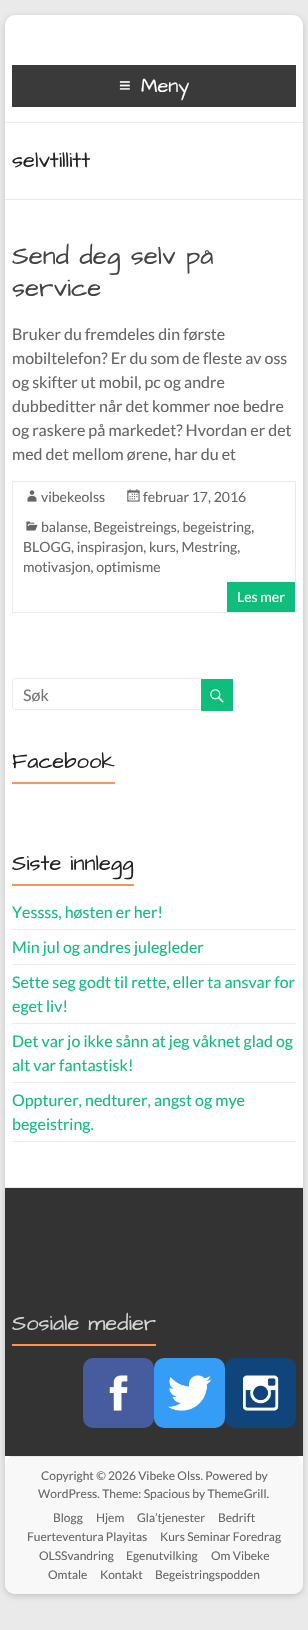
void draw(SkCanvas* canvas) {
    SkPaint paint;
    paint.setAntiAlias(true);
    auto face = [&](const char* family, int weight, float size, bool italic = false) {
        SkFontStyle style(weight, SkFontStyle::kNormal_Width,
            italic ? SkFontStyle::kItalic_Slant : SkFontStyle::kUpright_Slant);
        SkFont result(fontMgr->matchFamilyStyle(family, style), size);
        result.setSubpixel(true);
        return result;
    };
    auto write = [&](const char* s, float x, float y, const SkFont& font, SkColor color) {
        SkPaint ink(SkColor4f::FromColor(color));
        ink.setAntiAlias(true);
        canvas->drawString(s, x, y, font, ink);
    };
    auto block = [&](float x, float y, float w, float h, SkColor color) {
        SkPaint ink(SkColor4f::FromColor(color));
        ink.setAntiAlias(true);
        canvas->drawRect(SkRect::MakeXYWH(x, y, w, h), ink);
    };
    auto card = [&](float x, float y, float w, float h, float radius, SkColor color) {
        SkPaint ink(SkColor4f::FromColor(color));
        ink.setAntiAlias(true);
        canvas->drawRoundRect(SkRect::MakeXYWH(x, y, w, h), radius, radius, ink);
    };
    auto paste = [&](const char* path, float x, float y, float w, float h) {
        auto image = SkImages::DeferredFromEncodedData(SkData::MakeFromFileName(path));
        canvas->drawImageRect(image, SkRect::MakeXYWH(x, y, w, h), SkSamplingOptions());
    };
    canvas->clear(SkColorSetRGB(234, 234, 234));
    paint.setColor(SkColorSetARGB(77, 100, 100, 100));
    paint.setMaskFilter(SkMaskFilter::MakeBlur(kNormal_SkBlurStyle, 3));
    canvas->drawRoundRect(SkRect::MakeXYWH(5, 17, 298, 1579), 10, 10, paint);
    paint.setMaskFilter(nullptr);
    card(5, 15, 298, 1579, 10, SK_ColorWHITE);
    block(5, 122, 298, 1, SkColorSetRGB(234, 234, 234));
    block(12, 65, 284, 42, SkColorSetRGB(58, 58, 58));
    auto kFont1 = face("Liberation Sans", 400, 20);
    write("≡", 119, 92, kFont1, SK_ColorWHITE);
    auto kFont2 = face("Architects Daughter", 400, 20);
    write("Meny", 141, 92, kFont2, SK_ColorWHITE);
    block(5, 199, 298, 1, SkColorSetRGB(234, 234, 234));
    auto kFont3 = face("Architects Daughter", 400, 22);
    write("selvtillitt", 12, 167, kFont3, SkColorSetRGB(34, 34, 34));
    auto kFont4 = face("Architects Daughter", 400, 26);
    write("Send deg selv på", 12, 264, kFont4, SkColorSetRGB(68, 68, 68));
    write("service", 12, 296, kFont4, SkColorSetRGB(68, 68, 68));
    auto kFont5 = face("Lato", 400, 16);
    write("Bruker du fremdeles din første", 12, 340, kFont5, SkColorSetRGB(102, 102, 102));
    write("mobiltelefon? Er du som de fleste av oss", 12, 364, kFont5, SkColorSetRGB(102, 102, 102));
    write("og skifter ut mobil, pc og andre", 12, 388, kFont5, SkColorSetRGB(102, 102, 102));
    write("dubbeditter når det kommer noe bedre", 12, 412, kFont5, SkColorSetRGB(102, 102, 102));
    write("og raskere på markedet? Hvordan er det", 12, 436, kFont5, SkColorSetRGB(102, 102, 102));
    write("med det mellom ørene, har du et", 12, 460, kFont5, SkColorSetRGB(102, 102, 102));
    paint.setStyle(SkPaint::kStroke_Style);
    paint.setStrokeWidth(1);
    paint.setColor(SkColorSetRGB(234, 234, 234));
    canvas->drawRect(SkRect::MakeXYWH(12.5f, 481.5f, 283, 131), paint);
    paste("pic1.png", 27, 490, 10, 12);
    auto kFont6 = face("Lato", 400, 14);
    write("vibekeolss", 41, 502, kFont6, SkColorSetRGB(102, 102, 102));
    paste("pic2.png", 127, 489, 13, 13);
    write("februar 17, 2016", 143, 502, kFont6, SkColorSetRGB(102, 102, 102));
    paste("pic3.png", 26, 521, 12, 10);
    write("balanse, Begeistreings, begeistring,", 41, 532, kFont6, SkColorSetRGB(102, 102, 102));
    write("BLOGG, inspirasjon, kurs, Mestring,", 23, 552, kFont6, SkColorSetRGB(102, 102, 102));
    write("motivasjon, optimisme", 23, 572, kFont6, SkColorSetRGB(102, 102, 102));
    block(227, 582, 68, 30, SkColorSetRGB(15, 190, 124));
    write("Les mer", 237, 602, kFont6, SK_ColorWHITE);
    canvas->drawRoundRect(SkRect::MakeXYWH(12.5f, 678.5f, 191, 31), 2.5f, 2.5f, paint);
    write("Søk", 23, 701, kFont5, SkColorSetRGB(117, 117, 117));
    block(201, 679, 32, 32, SkColorSetRGB(15, 190, 124));
    paste("pic4.png", 210, 689, 14, 14);
    write("Facebook", 12, 768, kFont3, SkColorSetRGB(34, 34, 34));
    block(12, 782, 103, 2, SkColorSetRGB(251, 148, 83));
    write("Siste innlegg", 12, 870, kFont3, SkColorSetRGB(34, 34, 34));
    block(12, 884, 122, 2, SkColorSetRGB(251, 148, 83));
    block(12, 929, 284, 1, SkColorSetRGB(234, 234, 234));
    write("Yessss, høsten er her!", 12, 918, kFont5, SkColorSetRGB(15, 190, 124));
    block(12, 964, 284, 1, SkColorSetRGB(234, 234, 234));
    write("Min jul og andres julegleder", 12, 953, kFont5, SkColorSetRGB(15, 190, 124));
    block(12, 1023, 284, 1, SkColorSetRGB(234, 234, 234));
    write("Sette seg godt til rette, eller ta ansvar for", 12, 988, kFont5, SkColorSetRGB(15, 190, 124));
    write("eget liv!", 12, 1012, kFont5, SkColorSetRGB(15, 190, 124));
    block(12, 1082, 284, 1, SkColorSetRGB(234, 234, 234));
    write("Det var jo ikke sånn at jeg våknet glad og", 12, 1047, kFont5, SkColorSetRGB(15, 190, 124));
    write("alt var fantastisk!", 12, 1071, kFont5, SkColorSetRGB(15, 190, 124));
    block(12, 1141, 284, 1, SkColorSetRGB(234, 234, 234));
    write("Oppturer, nedturer, angst og mye", 12, 1106, kFont5, SkColorSetRGB(15, 190, 124));
    write("begeistring.", 12, 1130, kFont5, SkColorSetRGB(15, 190, 124));
    block(5, 1188, 298, 268, SkColorSetRGB(51, 51, 51));
    block(5, 1187, 298, 1, SkColorSetRGB(234, 234, 234));
    write("Sosiale medier", 12, 1330, kFont3, SkColorSetRGB(213, 213, 213));
    block(12, 1344, 144, 2, SkColorSetRGB(251, 148, 83));
    paste("pic5.png", 83, 1358, 71, 70);
    paste("pic6.png", 154, 1358, 71, 70);
    paste("pic7.png", 225, 1358, 71, 70);
    card(5, 1456, 298, 138, 10, SkColorSetRGB(248, 248, 248));
    block(10, 1456, 288, 1, SkColorSetRGB(234, 234, 234));
    auto kFont7 = face("Lato", 400, 12);
    write("Copyright © 2026 Vibeke Olss. Powered by", 41, 1480, kFont7, SkColorSetRGB(102, 102, 102));
    write("WordPress. Theme: Spacious by ThemeGrill.", 38, 1498, kFont7, SkColorSetRGB(102, 102, 102));
    write("Blogg", 53, 1522, kFont7, SkColorSetRGB(102, 102, 102));
    write("Hjem", 96, 1522, kFont7, SkColorSetRGB(102, 102, 102));
    write("Gla’tjenester", 137, 1522, kFont7, SkColorSetRGB(102, 102, 102));
    write("Bedrift", 218, 1522, kFont7, SkColorSetRGB(102, 102, 102));
    write("Fuerteventura Playitas", 27, 1541, kFont7, SkColorSetRGB(102, 102, 102));
    write("Kurs Seminar Foredrag", 160, 1541, kFont7, SkColorSetRGB(102, 102, 102));
    write("OLSSvandring", 39, 1560, kFont7, SkColorSetRGB(102, 102, 102));
    write("Egenutvilking", 126, 1560, kFont7, SkColorSetRGB(102, 102, 102));
    write("Om Vibeke", 211, 1560, kFont7, SkColorSetRGB(102, 102, 102));
    write("Omtale", 48, 1579, kFont7, SkColorSetRGB(102, 102, 102));
    write("Kontakt", 100, 1579, kFont7, SkColorSetRGB(102, 102, 102));
    write("Begeistringspodden", 155, 1579, kFont7, SkColorSetRGB(102, 102, 102));
}
